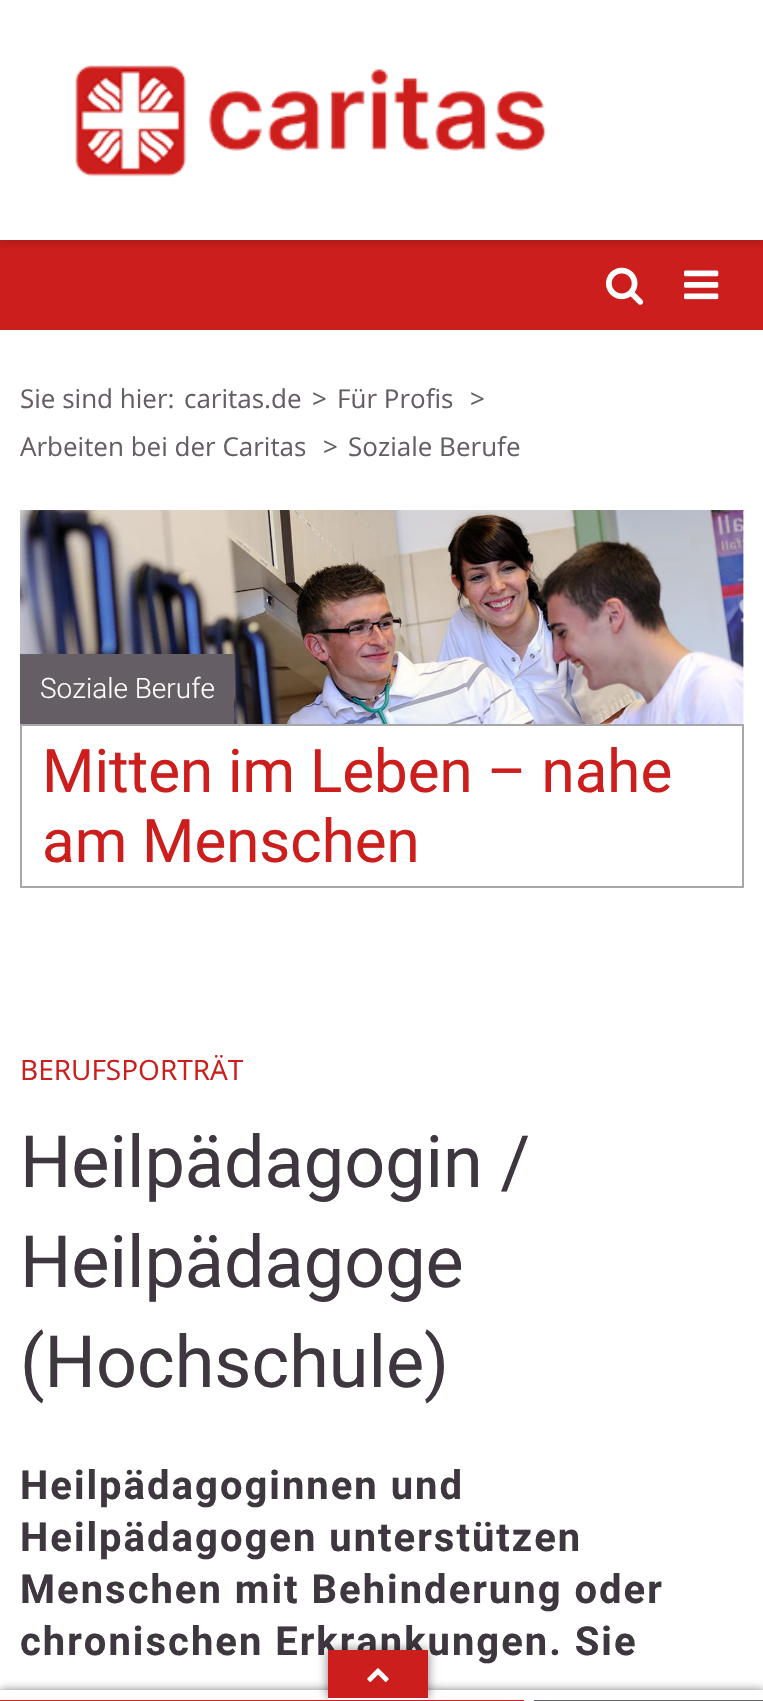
void draw(SkCanvas* canvas) {
    SkPaint paint;
    paint.setAntiAlias(true);
    auto face = [&](const char* family, int weight, float size, bool italic = false) {
        SkFontStyle style(weight, SkFontStyle::kNormal_Width,
            italic ? SkFontStyle::kItalic_Slant : SkFontStyle::kUpright_Slant);
        SkFont result(fontMgr->matchFamilyStyle(family, style), size);
        result.setSubpixel(true);
        return result;
    };
    auto write = [&](const char* s, float x, float y, const SkFont& font, SkColor color) {
        SkPaint ink(SkColor4f::FromColor(color));
        ink.setAntiAlias(true);
        canvas->drawString(s, x, y, font, ink);
    };
    auto writeSpaced = [&](const char* s, float x, float y, const SkFont& font, const SkPaint& ink, float letter, float word) {
        std::vector<SkGlyphID> glyphs(font.countText(s, strlen(s), SkTextEncoding::kUTF8));
        std::vector<float> xs(glyphs.size());
        font.textToGlyphs(s, strlen(s), SkTextEncoding::kUTF8, glyphs);
        font.getXPos(glyphs, xs, x);
        float extra = 0;
        for (size_t i = 0; i < glyphs.size(); i++) {
            xs[i] += extra;
            extra += letter + word * (glyphs[i] == font.unicharToGlyph(' '));
        }
        canvas->drawTextBlob(SkTextBlob::MakeFromPosHGlyphs(glyphs, xs, y, font), 0, 0, ink);
    };
    auto block = [&](float x, float y, float w, float h, SkColor color) {
        SkPaint ink(SkColor4f::FromColor(color));
        ink.setAntiAlias(true);
        canvas->drawRect(SkRect::MakeXYWH(x, y, w, h), ink);
    };
    auto paste = [&](const char* path, float x, float y, float w, float h) {
        auto image = SkImages::DeferredFromEncodedData(SkData::MakeFromFileName(path));
        canvas->drawImageRect(image, SkRect::MakeXYWH(x, y, w, h), SkSamplingOptions());
    };
    canvas->clear(SK_ColorWHITE);
    block(0, 240, 763, 90, SkColorSetRGB(204, 30, 28));
    canvas->save();
    canvas->clipRect(SkRect::MakeXYWH(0, 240, 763, 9));
    paint.setColor(SkColorSetARGB(26, 0, 0, 0));
    paint.setMaskFilter(SkMaskFilter::MakeBlur(kNormal_SkBlurStyle, 3));
    canvas->drawRect(SkRect::MakeXYWH(0, 6, 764, 240), paint);
    paint.setMaskFilter(nullptr);
    canvas->restore();
    paste("pic1.png", 75, 65, 471, 112);
    paste("pic2.png", 606, 267, 38, 38);
    paste("pic3.png", 684, 270, 35, 30);
    auto kFont1 = face("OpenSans", 400, 26);
    write("Sie sind hier:", 20, 408, kFont1, SkColorSetRGB(101, 95, 101));
    write("caritas.de", 184, 408, kFont1, SkColorSetRGB(101, 95, 101));
    write(">", 312, 408, kFont1, SkColorSetRGB(101, 95, 101));
    write("Für Profis", 337, 408, kFont1, SkColorSetRGB(101, 95, 101));
    write(">", 470, 408, kFont1, SkColorSetRGB(101, 95, 101));
    write("Arbeiten bei der Caritas", 20, 456, kFont1, SkColorSetRGB(101, 95, 101));
    write(">", 323, 456, kFont1, SkColorSetRGB(101, 95, 101));
    write("Soziale Berufe", 348, 456, kFont1, SkColorSetRGB(101, 95, 101));
    paste("pic4.png", 20, 510, 724, 214);
    block(20, 654, 214, 70, SkColorSetRGB(101, 95, 101));
    auto kFont2 = face("Roboto", 300, 28);
    write("Soziale Berufe", 40, 698, kFont2, SK_ColorWHITE);
    paint.setStyle(SkPaint::kStroke_Style);
    paint.setStrokeWidth(2);
    paint.setColor(SkColorSetRGB(167, 167, 167));
    canvas->drawRect(SkRect::MakeXYWH(21, 725, 722, 162), paint);
    auto kFont3 = face("Roboto", 400, 60);
    write("Mitten im Leben – nahe", 42, 792, kFont3, SkColorSetRGB(204, 30, 28));
    write("am Menschen", 42, 862, kFont3, SkColorSetRGB(204, 30, 28));
    auto kFont4 = face("OpenSans", 400, 28);
    write("BERUFSPORTRÄT", 20, 1080, kFont4, SkColorSetRGB(204, 30, 28));
    auto kFont5 = face("Roboto", 400, 72);
    write("Heilpädagogin /", 20, 1187, kFont5, SkColorSetRGB(63, 55, 63));
    write("Heilpädagoge", 20, 1287, kFont5, SkColorSetRGB(63, 55, 63));
    write("(Hochschule)", 20, 1387, kFont5, SkColorSetRGB(63, 55, 63));
    auto kFont6 = face("Roboto", 700, 40);
    paint.setStyle(SkPaint::kFill_Style);
    paint.setColor(SkColorSetRGB(63, 55, 63));
    writeSpaced("Heilpädagoginnen und", 20, 1499, kFont6, paint, 2, 0);
    writeSpaced("Heilpädagogen unterstützen", 20, 1551, kFont6, paint, 2, 0);
    writeSpaced("Menschen mit Behinderung oder", 20, 1603, kFont6, paint, 2, 0);
    writeSpaced("chronischen Erkrankungen. Sie", 20, 1655, kFont6, paint, 2, 0);
    paint.setColor(SkColorSetARGB(128, 0, 0, 0));
    paint.setMaskFilter(SkMaskFilter::MakeBlur(kNormal_SkBlurStyle, 5));
    canvas->drawRect(SkRect::MakeXYWH(0, 1690, 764, 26), paint);
    paint.setMaskFilter(nullptr);
    block(0, 1690, 763, 10, SK_ColorWHITE);
    paint.setMaskFilter(SkMaskFilter::MakeBlur(kNormal_SkBlurStyle, 5));
    canvas->drawRect(SkRect::MakeXYWH(328, 1650, 100, 48), paint);
    paint.setMaskFilter(nullptr);
    block(328, 1650, 100, 48, SkColorSetRGB(204, 30, 28));
    paste("pic5.png", 367, 1668, 22, 14);
    block(328, 1698, 100, 2, SK_ColorWHITE);
    block(0, 1700, 524, 1, SkColorSetRGB(204, 30, 28));
    block(524, 1700, 10, 1, SK_ColorWHITE);
    block(534, 1700, 229, 1, SkColorSetRGB(101, 95, 101));
}
